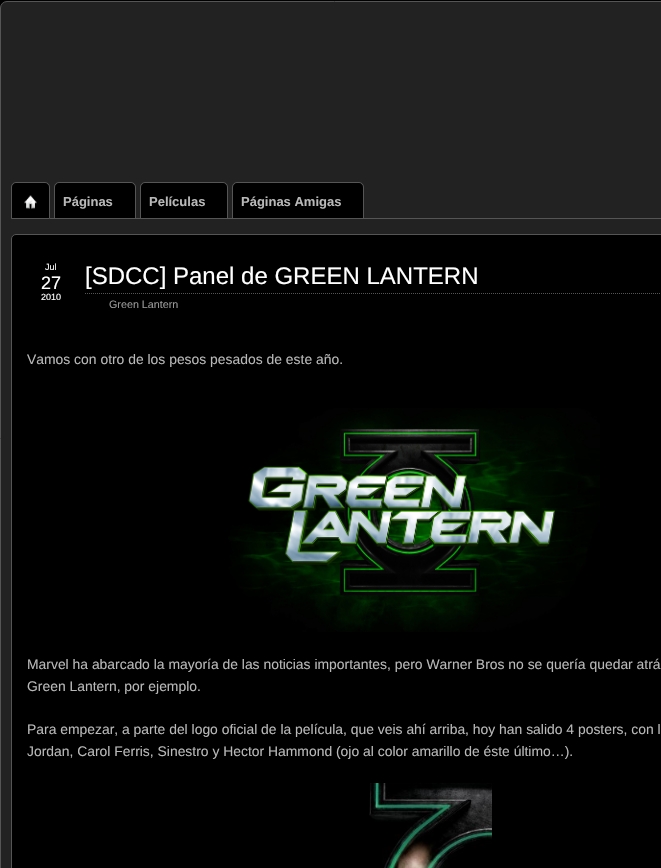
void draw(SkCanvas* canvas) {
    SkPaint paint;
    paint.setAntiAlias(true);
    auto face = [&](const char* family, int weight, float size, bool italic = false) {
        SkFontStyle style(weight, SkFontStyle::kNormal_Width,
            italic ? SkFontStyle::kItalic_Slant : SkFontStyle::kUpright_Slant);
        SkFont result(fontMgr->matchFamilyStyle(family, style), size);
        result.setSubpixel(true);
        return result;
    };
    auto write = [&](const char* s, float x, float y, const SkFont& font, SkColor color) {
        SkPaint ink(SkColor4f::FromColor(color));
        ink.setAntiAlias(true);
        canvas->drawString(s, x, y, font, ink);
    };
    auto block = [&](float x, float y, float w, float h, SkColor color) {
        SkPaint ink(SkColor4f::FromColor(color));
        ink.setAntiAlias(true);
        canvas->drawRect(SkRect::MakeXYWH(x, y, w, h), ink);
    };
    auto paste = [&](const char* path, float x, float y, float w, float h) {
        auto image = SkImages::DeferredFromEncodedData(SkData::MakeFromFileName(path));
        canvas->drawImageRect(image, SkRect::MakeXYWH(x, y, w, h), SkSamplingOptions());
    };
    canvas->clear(SK_ColorBLACK);
    paint.setColor(SkColorSetRGB(34, 34, 34));
    canvas->drawRoundRect(SkRect::MakeXYWH(0.5f, 1.5f, 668, 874), 6.5f, 6.5f, paint);
    paint.setStyle(SkPaint::kStroke_Style);
    paint.setStrokeWidth(1);
    paint.setColor(SkColorSetRGB(85, 85, 85));
    canvas->drawRoundRect(SkRect::MakeXYWH(0.5f, 1.5f, 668, 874), 6.5f, 6.5f, paint);
    block(50, 218, 611, 1, SkColorSetRGB(85, 85, 85));
    canvas->drawPath(SkPathBuilder().moveTo(16, 182.5f).lineTo(45, 182.5f).cubicTo(47.5f, 182.5f, 49.5f, 184.5f, 49.5f, 187).lineTo(49.5f, 218.5f).lineTo(11.5f, 218.5f).lineTo(11.5f, 187).cubicTo(11.5f, 184.5f, 13.5f, 182.5f, 16, 182.5f).close().detach(), paint);
    paint.setStyle(SkPaint::kFill_Style);
    paint.setColor(SK_ColorBLACK);
    canvas->drawPath(SkPathBuilder().moveTo(17, 183).lineTo(44, 183).cubicTo(47, 183, 49, 185, 49, 188).lineTo(49, 218).lineTo(12, 218).lineTo(12, 188).cubicTo(12, 185, 14, 183, 17, 183).close().detach(), paint);
    paste("pic1.png", 24, 195, 13, 14);
    paint.setStyle(SkPaint::kStroke_Style);
    paint.setColor(SkColorSetRGB(85, 85, 85));
    canvas->drawPath(SkPathBuilder().moveTo(59, 182.5f).lineTo(131, 182.5f).cubicTo(133.5f, 182.5f, 135.5f, 184.5f, 135.5f, 187).lineTo(135.5f, 218.5f).lineTo(54.5f, 218.5f).lineTo(54.5f, 187).cubicTo(54.5f, 184.5f, 56.5f, 182.5f, 59, 182.5f).close().detach(), paint);
    paint.setStyle(SkPaint::kFill_Style);
    paint.setColor(SK_ColorBLACK);
    canvas->drawPath(SkPathBuilder().moveTo(60, 183).lineTo(130, 183).cubicTo(133, 183, 135, 185, 135, 188).lineTo(135, 218).lineTo(55, 218).lineTo(55, 188).cubicTo(55, 185, 57, 183, 60, 183).close().detach(), paint);
    auto kFont1 = face("Liberation Sans", 700, 13);
    write("Páginas", 63, 206, kFont1, SkColorSetRGB(184, 184, 184));
    paint.setStyle(SkPaint::kStroke_Style);
    paint.setColor(SkColorSetRGB(85, 85, 85));
    canvas->drawPath(SkPathBuilder().moveTo(145, 182.5f).lineTo(223, 182.5f).cubicTo(225.5f, 182.5f, 227.5f, 184.5f, 227.5f, 187).lineTo(227.5f, 218.5f).lineTo(140.5f, 218.5f).lineTo(140.5f, 187).cubicTo(140.5f, 184.5f, 142.5f, 182.5f, 145, 182.5f).close().detach(), paint);
    paint.setStyle(SkPaint::kFill_Style);
    paint.setColor(SK_ColorBLACK);
    canvas->drawPath(SkPathBuilder().moveTo(146, 183).lineTo(222, 183).cubicTo(225, 183, 227, 185, 227, 188).lineTo(227, 218).lineTo(141, 218).lineTo(141, 188).cubicTo(141, 185, 143, 183, 146, 183).close().detach(), paint);
    write("Películas", 149, 206, kFont1, SkColorSetRGB(184, 184, 184));
    paint.setStyle(SkPaint::kStroke_Style);
    paint.setColor(SkColorSetRGB(85, 85, 85));
    canvas->drawPath(SkPathBuilder().moveTo(237, 182.5f).lineTo(359, 182.5f).cubicTo(361.5f, 182.5f, 363.5f, 184.5f, 363.5f, 187).lineTo(363.5f, 218.5f).lineTo(232.5f, 218.5f).lineTo(232.5f, 187).cubicTo(232.5f, 184.5f, 234.5f, 182.5f, 237, 182.5f).close().detach(), paint);
    paint.setStyle(SkPaint::kFill_Style);
    paint.setColor(SK_ColorBLACK);
    canvas->drawPath(SkPathBuilder().moveTo(238, 183).lineTo(358, 183).cubicTo(361, 183, 363, 185, 363, 188).lineTo(363, 218).lineTo(233, 218).lineTo(233, 188).cubicTo(233, 185, 235, 183, 238, 183).close().detach(), paint);
    write("Páginas Amigas", 241, 206, kFont1, SkColorSetRGB(184, 184, 184));
    canvas->drawRoundRect(SkRect::MakeXYWH(11.5f, 234.5f, 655, 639), 4.5f, 4.5f, paint);
    paint.setStyle(SkPaint::kStroke_Style);
    paint.setColor(SkColorSetRGB(85, 85, 85));
    canvas->drawRoundRect(SkRect::MakeXYWH(11.5f, 234.5f, 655, 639), 4.5f, 4.5f, paint);
    auto kFont2 = face("Liberation Sans", 400, 9);
    write("Jul", 45, 270, kFont2, SK_ColorWHITE);
    auto kFont3 = face("Liberation Sans", 400, 18);
    write("27", 41, 289, kFont3, SK_ColorWHITE);
    write("2010", 41, 300, kFont2, SK_ColorWHITE);
    paint.setPathEffect(SkDashPathEffect::Make({{1, 1}}, 0));
    canvas->drawPath(SkPathBuilder().moveTo(85, 293.5f).lineTo(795, 293.5f).detach(), paint);
    paint.setPathEffect(nullptr);
    auto kFont4 = face("Liberation Sans", 400, 24);
    write("[SDCC] Panel de GREEN LANTERN", 85, 284, kFont4, SK_ColorWHITE);
    auto kFont5 = face("Liberation Sans", 400, 10.75f);
    write("Green Lantern", 109, 308, kFont5, SkColorSetRGB(153, 153, 153));
    auto kFont6 = face("Liberation Sans", 400, 13.9f);
    write("Vamos con otro de los pesos pesados de este año.", 27, 364, kFont6, SkColorSetRGB(184, 184, 184));
    paste("pic2.png", 228, 408, 372, 224);
    write("Marvel ha abarcado la mayoría de las noticias importantes, pero Warner Bros no se quería quedar atrá", 27, 669, kFont6, SkColorSetRGB(184, 184, 184));
    write("Green Lantern, por ejemplo.", 27, 691, kFont6, SkColorSetRGB(184, 184, 184));
    write("Para empezar, a parte del logo oficial de la película, que veis ahí arriba, hoy han salido 4 posters, con l", 27, 734, kFont6, SkColorSetRGB(184, 184, 184));
    write("Jordan, Carol Ferris, Sinestro y Hector Hammond (ojo al color amarillo de éste último…).", 27, 756, kFont6, SkColorSetRGB(184, 184, 184));
    paste("pic3.png", 369, 783, 123, 85);
}
